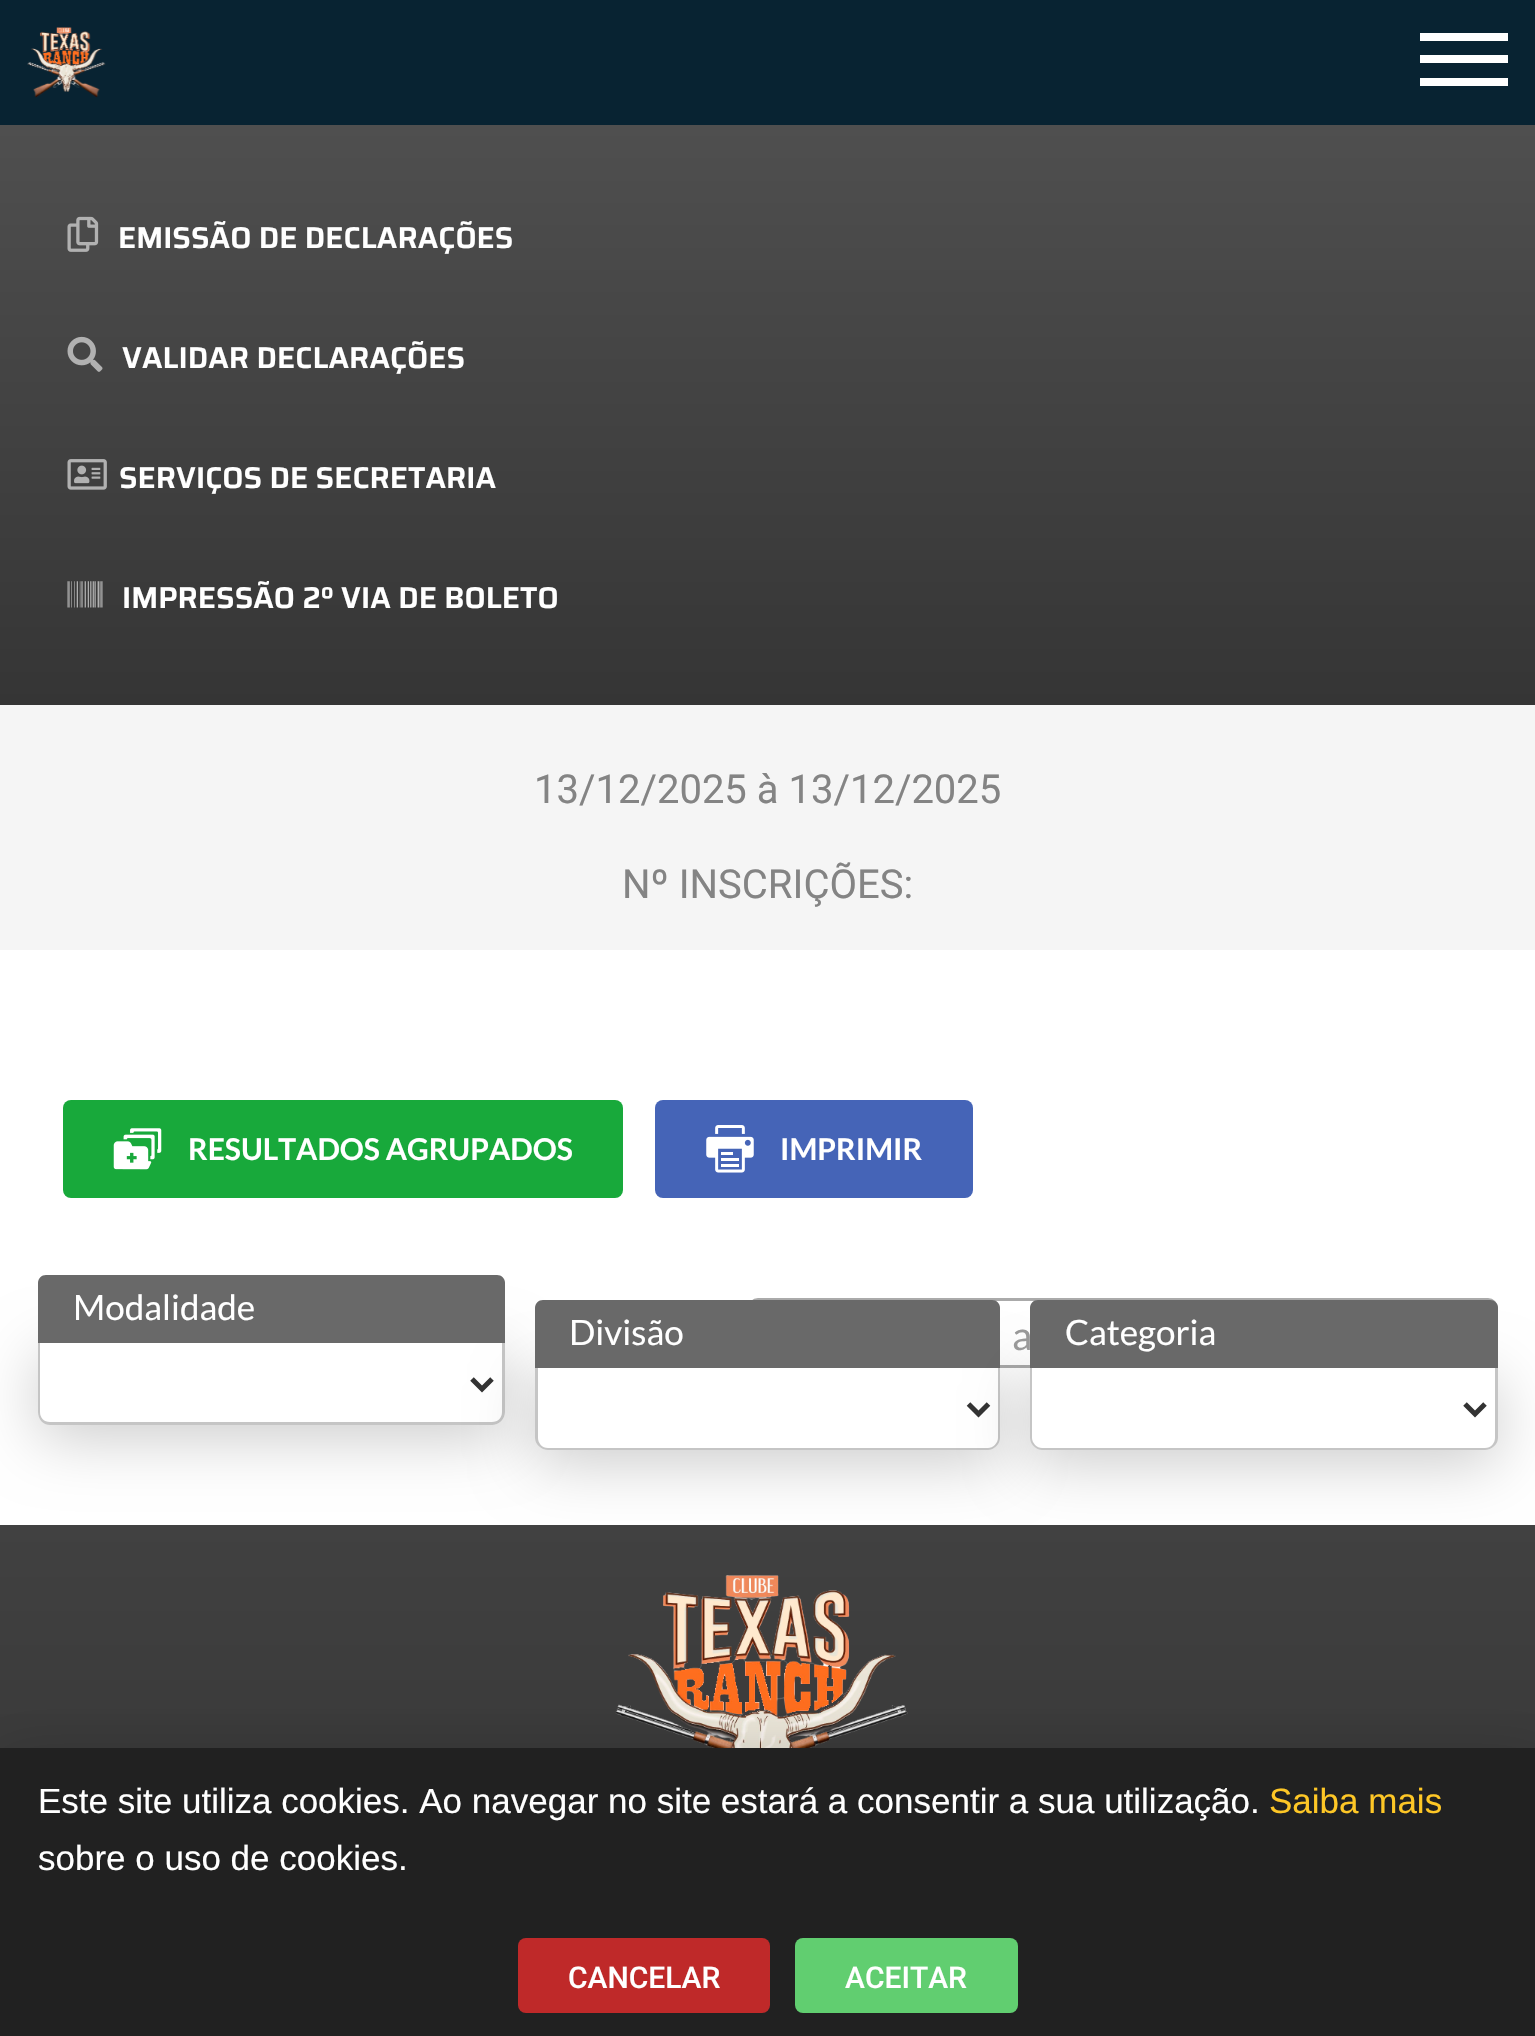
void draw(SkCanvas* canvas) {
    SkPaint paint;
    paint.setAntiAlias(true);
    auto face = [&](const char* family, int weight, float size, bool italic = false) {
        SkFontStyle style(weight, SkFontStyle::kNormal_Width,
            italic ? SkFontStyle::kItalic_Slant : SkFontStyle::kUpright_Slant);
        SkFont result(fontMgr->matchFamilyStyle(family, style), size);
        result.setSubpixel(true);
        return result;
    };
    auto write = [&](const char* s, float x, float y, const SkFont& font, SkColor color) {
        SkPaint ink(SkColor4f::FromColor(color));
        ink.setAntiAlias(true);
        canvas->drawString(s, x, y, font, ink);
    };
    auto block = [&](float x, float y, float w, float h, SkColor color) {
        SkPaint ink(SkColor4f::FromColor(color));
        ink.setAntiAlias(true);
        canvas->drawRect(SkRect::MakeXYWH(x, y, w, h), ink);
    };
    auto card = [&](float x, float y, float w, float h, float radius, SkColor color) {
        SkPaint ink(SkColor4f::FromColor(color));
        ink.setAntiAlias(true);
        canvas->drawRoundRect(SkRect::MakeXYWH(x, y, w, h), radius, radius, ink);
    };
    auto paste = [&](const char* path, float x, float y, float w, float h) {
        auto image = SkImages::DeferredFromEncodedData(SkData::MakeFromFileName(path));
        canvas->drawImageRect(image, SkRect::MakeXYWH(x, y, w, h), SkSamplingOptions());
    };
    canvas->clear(SK_ColorWHITE);
    block(0, 0, 1535, 125, SkColorSetRGB(8, 35, 50));
    paste("pic1.png", 27, 27, 79, 71);
    block(1420, 55, 88, 8, SK_ColorWHITE);
    block(1420, 33, 88, 8, SK_ColorWHITE);
    block(1420, 78, 88, 8, SK_ColorWHITE);
    {
        const SkColor colors[] = {SkColorSetRGB(79, 79, 79), SkColorSetRGB(53, 53, 53)};
        const float stops[] = {0, 1};
        const SkPoint ends[] = {{768, 125}, {768, 705}};
        paint.setShader(SkGradientShader::MakeLinear(ends, colors, stops, 2, SkTileMode::kClamp));
        paint.setAlpha(255);
    }
    canvas->drawRect(SkRect::MakeXYWH(0, 125, 1535, 580), paint);
    paste("pic2.png", 67, 216, 32, 36);
    auto kFont1 = face("Saira", 600, 30);
    write("EMISSÃO DE DECLARAÇÕES", 118, 248, kFont1, SK_ColorWHITE);
    paste("pic3.png", 67, 336, 36, 36);
    write("VALIDAR DECLARAÇÕES", 122, 368, kFont1, SK_ColorWHITE);
    paste("pic4.png", 67, 459, 40, 31);
    write("SERVIÇOS DE SECRETARIA", 119, 488, kFont1, SK_ColorWHITE);
    paste("pic5.png", 67, 581, 36, 27);
    write("IMPRESSÃO 2º VIA DE BOLETO", 122, 608, kFont1, SK_ColorWHITE);
    block(0, 705, 1535, 245, SkColorSetRGB(245, 245, 245));
    auto kFont2 = face("Roboto", 400, 40);
    write("13/12/2025 à 13/12/2025", 534, 803, kFont2, SkColorSetRGB(132, 132, 132));
    write("Nº INSCRIÇÕES:", 622, 898, kFont2, SkColorSetRGB(132, 132, 132));
    card(63, 1100, 560, 98, 8, SkColorSetRGB(24, 169, 59));
    paste("pic6.png", 113, 1128, 49, 42);
    auto kFont3 = face("Lato", 700, 30);
    write("RESULTADOS AGRUPADOS", 188, 1160, kFont3, SK_ColorWHITE);
    card(655, 1100, 318, 98, 8, SkColorSetRGB(69, 100, 183));
    paste("pic7.png", 706, 1125, 48, 48);
    write("IMPRIMIR", 780, 1160, kFont3, SK_ColorWHITE);
    paint.setShader(nullptr);
    paint.setColor(SkColorSetARGB(51, 0, 0, 0));
    paint.setMaskFilter(SkMaskFilter::MakeBlur(kNormal_SkBlurStyle, 31));
    canvas->drawRoundRect(SkRect::MakeXYWH(38, 1355, 467, 83), 13, 13, paint);
    paint.setMaskFilter(nullptr);
    paint.setColor(SK_ColorWHITE);
    canvas->drawPath(SkPathBuilder().moveTo(38, 1343).lineTo(505, 1343).lineTo(505, 1412).cubicTo(505, 1419, 499, 1425, 492, 1425).lineTo(51, 1425).cubicTo(44, 1425, 38, 1419, 38, 1412).close().detach(), paint);
    paint.setColor(SkColorSetRGB(197, 197, 197));
    canvas->drawPath(SkPathBuilder(SkPathFillType::kEvenOdd).moveTo(38, 1342).lineTo(505, 1342).lineTo(505, 1412).cubicTo(505, 1419, 499, 1425, 492, 1425).lineTo(50, 1425).cubicTo(43, 1425, 38, 1419, 38, 1412).close().moveTo(40, 1342).lineTo(502, 1342).lineTo(502, 1412).cubicTo(502, 1418, 498, 1422, 492, 1422).lineTo(50, 1422).cubicTo(44, 1422, 40, 1418, 40, 1412).close().detach(), paint);
    paint.setStyle(SkPaint::kStroke_Style);
    paint.setStrokeWidth(5);
    paint.setColor(SkColorSetRGB(51, 51, 51));
    canvas->drawPath(SkPathBuilder().moveTo(472, 1379).lineTo(482, 1389).lineTo(492, 1379).detach(), paint);
    paint.setStyle(SkPaint::kFill_Style);
    paint.setColor(SkColorSetRGB(105, 105, 105));
    canvas->drawPath(SkPathBuilder().moveTo(46, 1275).lineTo(497, 1275).cubicTo(501.5f, 1275, 505, 1278.5f, 505, 1283).lineTo(505, 1343).lineTo(38, 1343).lineTo(38, 1283).cubicTo(38, 1278.5f, 41.5f, 1275, 46, 1275).close().detach(), paint);
    auto kFont4 = face("Lato", 400, 35);
    write("Modalidade", 73, 1320, kFont4, SK_ColorWHITE);
    paint.setStyle(SkPaint::kStroke_Style);
    paint.setStrokeWidth(3);
    paint.setColor(SkColorSetRGB(170, 170, 170));
    canvas->drawRoundRect(SkRect::MakeXYWH(749.5f, 1299.5f, 747, 67), 8.5f, 8.5f, paint);
    paint.setStyle(SkPaint::kFill_Style);
    paint.setColor(SkColorSetARGB(51, 0, 0, 0));
    paint.setMaskFilter(SkMaskFilter::MakeBlur(kNormal_SkBlurStyle, 31));
    canvas->drawRoundRect(SkRect::MakeXYWH(535, 1380, 465, 83), 13, 13, paint);
    paint.setMaskFilter(nullptr);
    paint.setColor(SK_ColorWHITE);
    canvas->drawPath(SkPathBuilder().moveTo(535, 1368).lineTo(1000, 1368).lineTo(1000, 1437).cubicTo(1000, 1444, 994, 1450, 987, 1450).lineTo(548, 1450).cubicTo(541, 1450, 535, 1444, 535, 1437).close().detach(), paint);
    paint.setColor(SkColorSetRGB(197, 197, 197));
    canvas->drawPath(SkPathBuilder(SkPathFillType::kEvenOdd).moveTo(535, 1368).lineTo(1000, 1368).lineTo(1000, 1438).cubicTo(1000, 1444, 994, 1450, 988, 1450).lineTo(548, 1450).cubicTo(541, 1450, 535, 1444, 535, 1438).close().moveTo(538, 1368).lineTo(998, 1368).lineTo(998, 1438).cubicTo(998, 1443, 993, 1448, 988, 1448).lineTo(548, 1448).cubicTo(542, 1448, 538, 1443, 538, 1438).close().detach(), paint);
    paint.setStyle(SkPaint::kStroke_Style);
    paint.setStrokeWidth(5);
    paint.setColor(SkColorSetRGB(51, 51, 51));
    canvas->drawPath(SkPathBuilder().moveTo(968.5f, 1404).lineTo(978.5f, 1414).lineTo(988.5f, 1404).detach(), paint);
    paint.setStyle(SkPaint::kFill_Style);
    paint.setColor(SkColorSetRGB(105, 105, 105));
    canvas->drawPath(SkPathBuilder().moveTo(543, 1300).lineTo(992, 1300).cubicTo(996.5f, 1300, 1000, 1303.5f, 1000, 1308).lineTo(1000, 1368).lineTo(535, 1368).lineTo(535, 1308).cubicTo(535, 1303.5f, 538.5f, 1300, 543, 1300).close().detach(), paint);
    write("Divisão", 569, 1345, kFont4, SK_ColorWHITE);
    paint.setColor(SkColorSetARGB(51, 0, 0, 0));
    paint.setMaskFilter(SkMaskFilter::MakeBlur(kNormal_SkBlurStyle, 31));
    canvas->drawRoundRect(SkRect::MakeXYWH(1030, 1380, 468, 83), 13, 13, paint);
    paint.setMaskFilter(nullptr);
    paint.setColor(SK_ColorWHITE);
    canvas->drawPath(SkPathBuilder().moveTo(1030, 1368).lineTo(1498, 1368).lineTo(1498, 1437).cubicTo(1498, 1444, 1492, 1450, 1485, 1450).lineTo(1043, 1450).cubicTo(1036, 1450, 1030, 1444, 1030, 1437).close().detach(), paint);
    paint.setColor(SkColorSetRGB(197, 197, 197));
    canvas->drawPath(SkPathBuilder(SkPathFillType::kEvenOdd).moveTo(1030, 1368).lineTo(1498, 1368).lineTo(1498, 1438).cubicTo(1498, 1444, 1492, 1450, 1485, 1450).lineTo(1042, 1450).cubicTo(1036, 1450, 1030, 1444, 1030, 1438).close().moveTo(1032, 1368).lineTo(1495, 1368).lineTo(1495, 1438).cubicTo(1495, 1443, 1491, 1448, 1485, 1448).lineTo(1042, 1448).cubicTo(1037, 1448, 1032, 1443, 1032, 1438).close().detach(), paint);
    paint.setStyle(SkPaint::kStroke_Style);
    paint.setColor(SkColorSetRGB(51, 51, 51));
    canvas->drawPath(SkPathBuilder().moveTo(1465, 1404).lineTo(1475, 1414).lineTo(1485, 1404).detach(), paint);
    paint.setStyle(SkPaint::kFill_Style);
    paint.setColor(SkColorSetRGB(105, 105, 105));
    canvas->drawPath(SkPathBuilder().moveTo(1038, 1300).lineTo(1490, 1300).cubicTo(1494.5f, 1300, 1498, 1303.5f, 1498, 1308).lineTo(1498, 1368).lineTo(1030, 1368).lineTo(1030, 1308).cubicTo(1030, 1303.5f, 1033.5f, 1300, 1038, 1300).close().detach(), paint);
    write("Categoria", 1065, 1345, kFont4, SK_ColorWHITE);
    auto kFont5 = face("Lato", 400, 40);
    write("a", 1012, 1350, kFont5, SkColorSetRGB(153, 153, 153));
    {
        const SkColor colors[] = {SkColorSetRGB(65, 65, 65), SkColorSetRGB(53, 53, 53)};
        const float stops[] = {0, 1};
        const SkPoint ends[] = {{768, 1525}, {768, 1938}};
        paint.setShader(SkGradientShader::MakeLinear(ends, colors, stops, 2, SkTileMode::kClamp));
        paint.setAlpha(255);
    }
    canvas->drawRect(SkRect::MakeXYWH(0, 1525, 1535, 223), paint);
    paste("pic8.png", 615, 1575, 293, 173);
    paint.setShader(nullptr);
    paint.setColor(SkColorSetARGB(51, 0, 0, 0));
    paint.setMaskFilter(SkMaskFilter::MakeBlur(kNormal_SkBlurStyle, 29));
    canvas->drawRect(SkRect::MakeXYWH(-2, 1760, 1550, 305), paint);
    paint.setMaskFilter(nullptr);
    block(0, 1748, 1535, 288, SkColorSetRGB(33, 33, 33));
    auto kFont6 = face("Liberation Sans", 400, 35);
    write("Este site utiliza cookies. Ao navegar no site estará a consentir a sua utilização.", 38, 1813, kFont6, SK_ColorWHITE);
    write("Saiba mais", 1269, 1813, kFont6, SkColorSetRGB(254, 199, 38));
    write("sobre o uso de cookies.", 38, 1870, kFont6, SK_ColorWHITE);
    card(518, 1938, 252, 75, 8, SkColorSetRGB(191, 41, 41));
    auto kFont7 = face("Roboto", 500, 30);
    write("CANCELAR", 568, 1988, kFont7, SK_ColorWHITE);
    card(795, 1938, 223, 75, 8, SkColorSetRGB(97, 206, 112));
    write("ACEITAR", 845, 1988, kFont7, SK_ColorWHITE);
}
